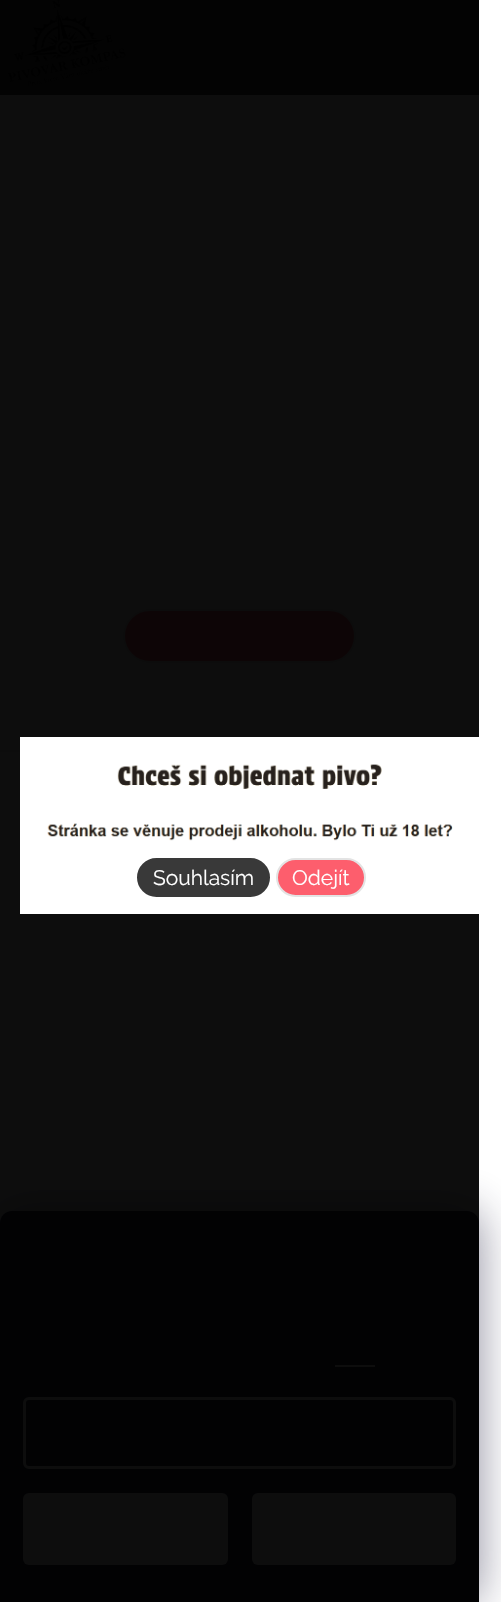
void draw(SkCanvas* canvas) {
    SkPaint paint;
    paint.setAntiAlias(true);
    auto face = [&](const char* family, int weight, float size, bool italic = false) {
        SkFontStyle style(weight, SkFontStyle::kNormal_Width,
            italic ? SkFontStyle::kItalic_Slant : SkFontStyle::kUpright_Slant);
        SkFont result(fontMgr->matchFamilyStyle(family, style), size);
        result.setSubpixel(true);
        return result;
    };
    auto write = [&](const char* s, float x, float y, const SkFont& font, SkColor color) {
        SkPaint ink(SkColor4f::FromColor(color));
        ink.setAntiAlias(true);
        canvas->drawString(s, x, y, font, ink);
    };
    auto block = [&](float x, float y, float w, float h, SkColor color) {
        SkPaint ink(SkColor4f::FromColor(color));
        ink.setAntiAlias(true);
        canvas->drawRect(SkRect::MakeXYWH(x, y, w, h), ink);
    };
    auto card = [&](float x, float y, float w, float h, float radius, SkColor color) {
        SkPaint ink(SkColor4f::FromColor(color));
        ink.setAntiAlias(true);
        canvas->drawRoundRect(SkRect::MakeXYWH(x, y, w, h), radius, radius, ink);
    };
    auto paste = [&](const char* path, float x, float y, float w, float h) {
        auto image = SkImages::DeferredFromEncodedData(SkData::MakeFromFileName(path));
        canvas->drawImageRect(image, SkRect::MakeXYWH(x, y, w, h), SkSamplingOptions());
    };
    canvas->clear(SK_ColorWHITE);
    block(0, 0, 479, 95, SkColorSetRGB(57, 57, 57));
    paste("pic1.png", 7, 0, 119, 87);
    paint.setColor(SkColorSetRGB(253, 94, 109));
    canvas->drawRoundRect(SkRect::MakeXYWH(124, 610, 231, 52), 26, 26, paint);
    paint.setStyle(SkPaint::kStroke_Style);
    paint.setStrokeWidth(2);
    paint.setColor(SkColorSetRGB(227, 227, 227));
    canvas->drawRoundRect(SkRect::MakeXYWH(124, 610, 231, 52), 26, 26, paint);
    block(0, 750, 20, 2, SkColorSetRGB(227, 227, 227));
    paint.setStyle(SkPaint::kFill_Style);
    paint.setColor(SkColorSetARGB(128, 27, 25, 57));
    paint.setMaskFilter(SkMaskFilter::MakeBlur(kNormal_SkBlurStyle, 22.5f));
    canvas->drawRoundRect(SkRect::MakeXYWH(0, 1211, 479, 391), 12, 12, paint);
    paint.setMaskFilter(nullptr);
    paint.setColor(SkColorSetRGB(26, 25, 55));
    canvas->drawPath(SkPathBuilder().moveTo(12, 1211).lineTo(467, 1211).cubicTo(473.5f, 1211, 479, 1216.5f, 479, 1223).lineTo(479, 1602).lineTo(0, 1602).lineTo(0, 1223).cubicTo(0, 1216.5f, 5.5f, 1211, 12, 1211).close().detach(), paint);
    block(335, 1365, 40, 2, SkColorSetRGB(248, 250, 251));
    paint.setStyle(SkPaint::kStroke_Style);
    paint.setStrokeWidth(3);
    paint.setColor(SkColorSetRGB(248, 250, 251));
    canvas->drawRoundRect(SkRect::MakeXYWH(24.5f, 1398.5f, 430, 69), 4.5f, 4.5f, paint);
    card(23, 1493, 205, 72, 6, SkColorSetRGB(248, 250, 251));
    card(252, 1493, 204, 72, 6, SkColorSetRGB(248, 250, 251));
    block(0, 0, 479, 1602, SkColorSetARGB(242, 0, 0, 0));
    block(20, 737, 459, 177, SK_ColorWHITE);
    paste("pic2.png", 47, 764, 406, 77);
    paint.setStyle(SkPaint::kFill_Style);
    paint.setColor(SkColorSetRGB(57, 57, 57));
    canvas->drawRoundRect(SkRect::MakeXYWH(138, 859, 131, 37), 18.5f, 18.5f, paint);
    paint.setStyle(SkPaint::kStroke_Style);
    paint.setStrokeWidth(2);
    canvas->drawRoundRect(SkRect::MakeXYWH(138, 859, 131, 37), 18.5f, 18.5f, paint);
    auto kFont1 = face("Raleway", 400, 21);
    write("Souhlasím", 153, 885, kFont1, SK_ColorWHITE);
    paint.setStyle(SkPaint::kFill_Style);
    paint.setColor(SkColorSetRGB(253, 94, 109));
    canvas->drawRoundRect(SkRect::MakeXYWH(277, 859, 88, 37), 18.5f, 18.5f, paint);
    paint.setStyle(SkPaint::kStroke_Style);
    paint.setColor(SkColorSetRGB(227, 227, 227));
    canvas->drawRoundRect(SkRect::MakeXYWH(277, 859, 88, 37), 18.5f, 18.5f, paint);
    write("Odejít", 292, 885, kFont1, SK_ColorWHITE);
}
